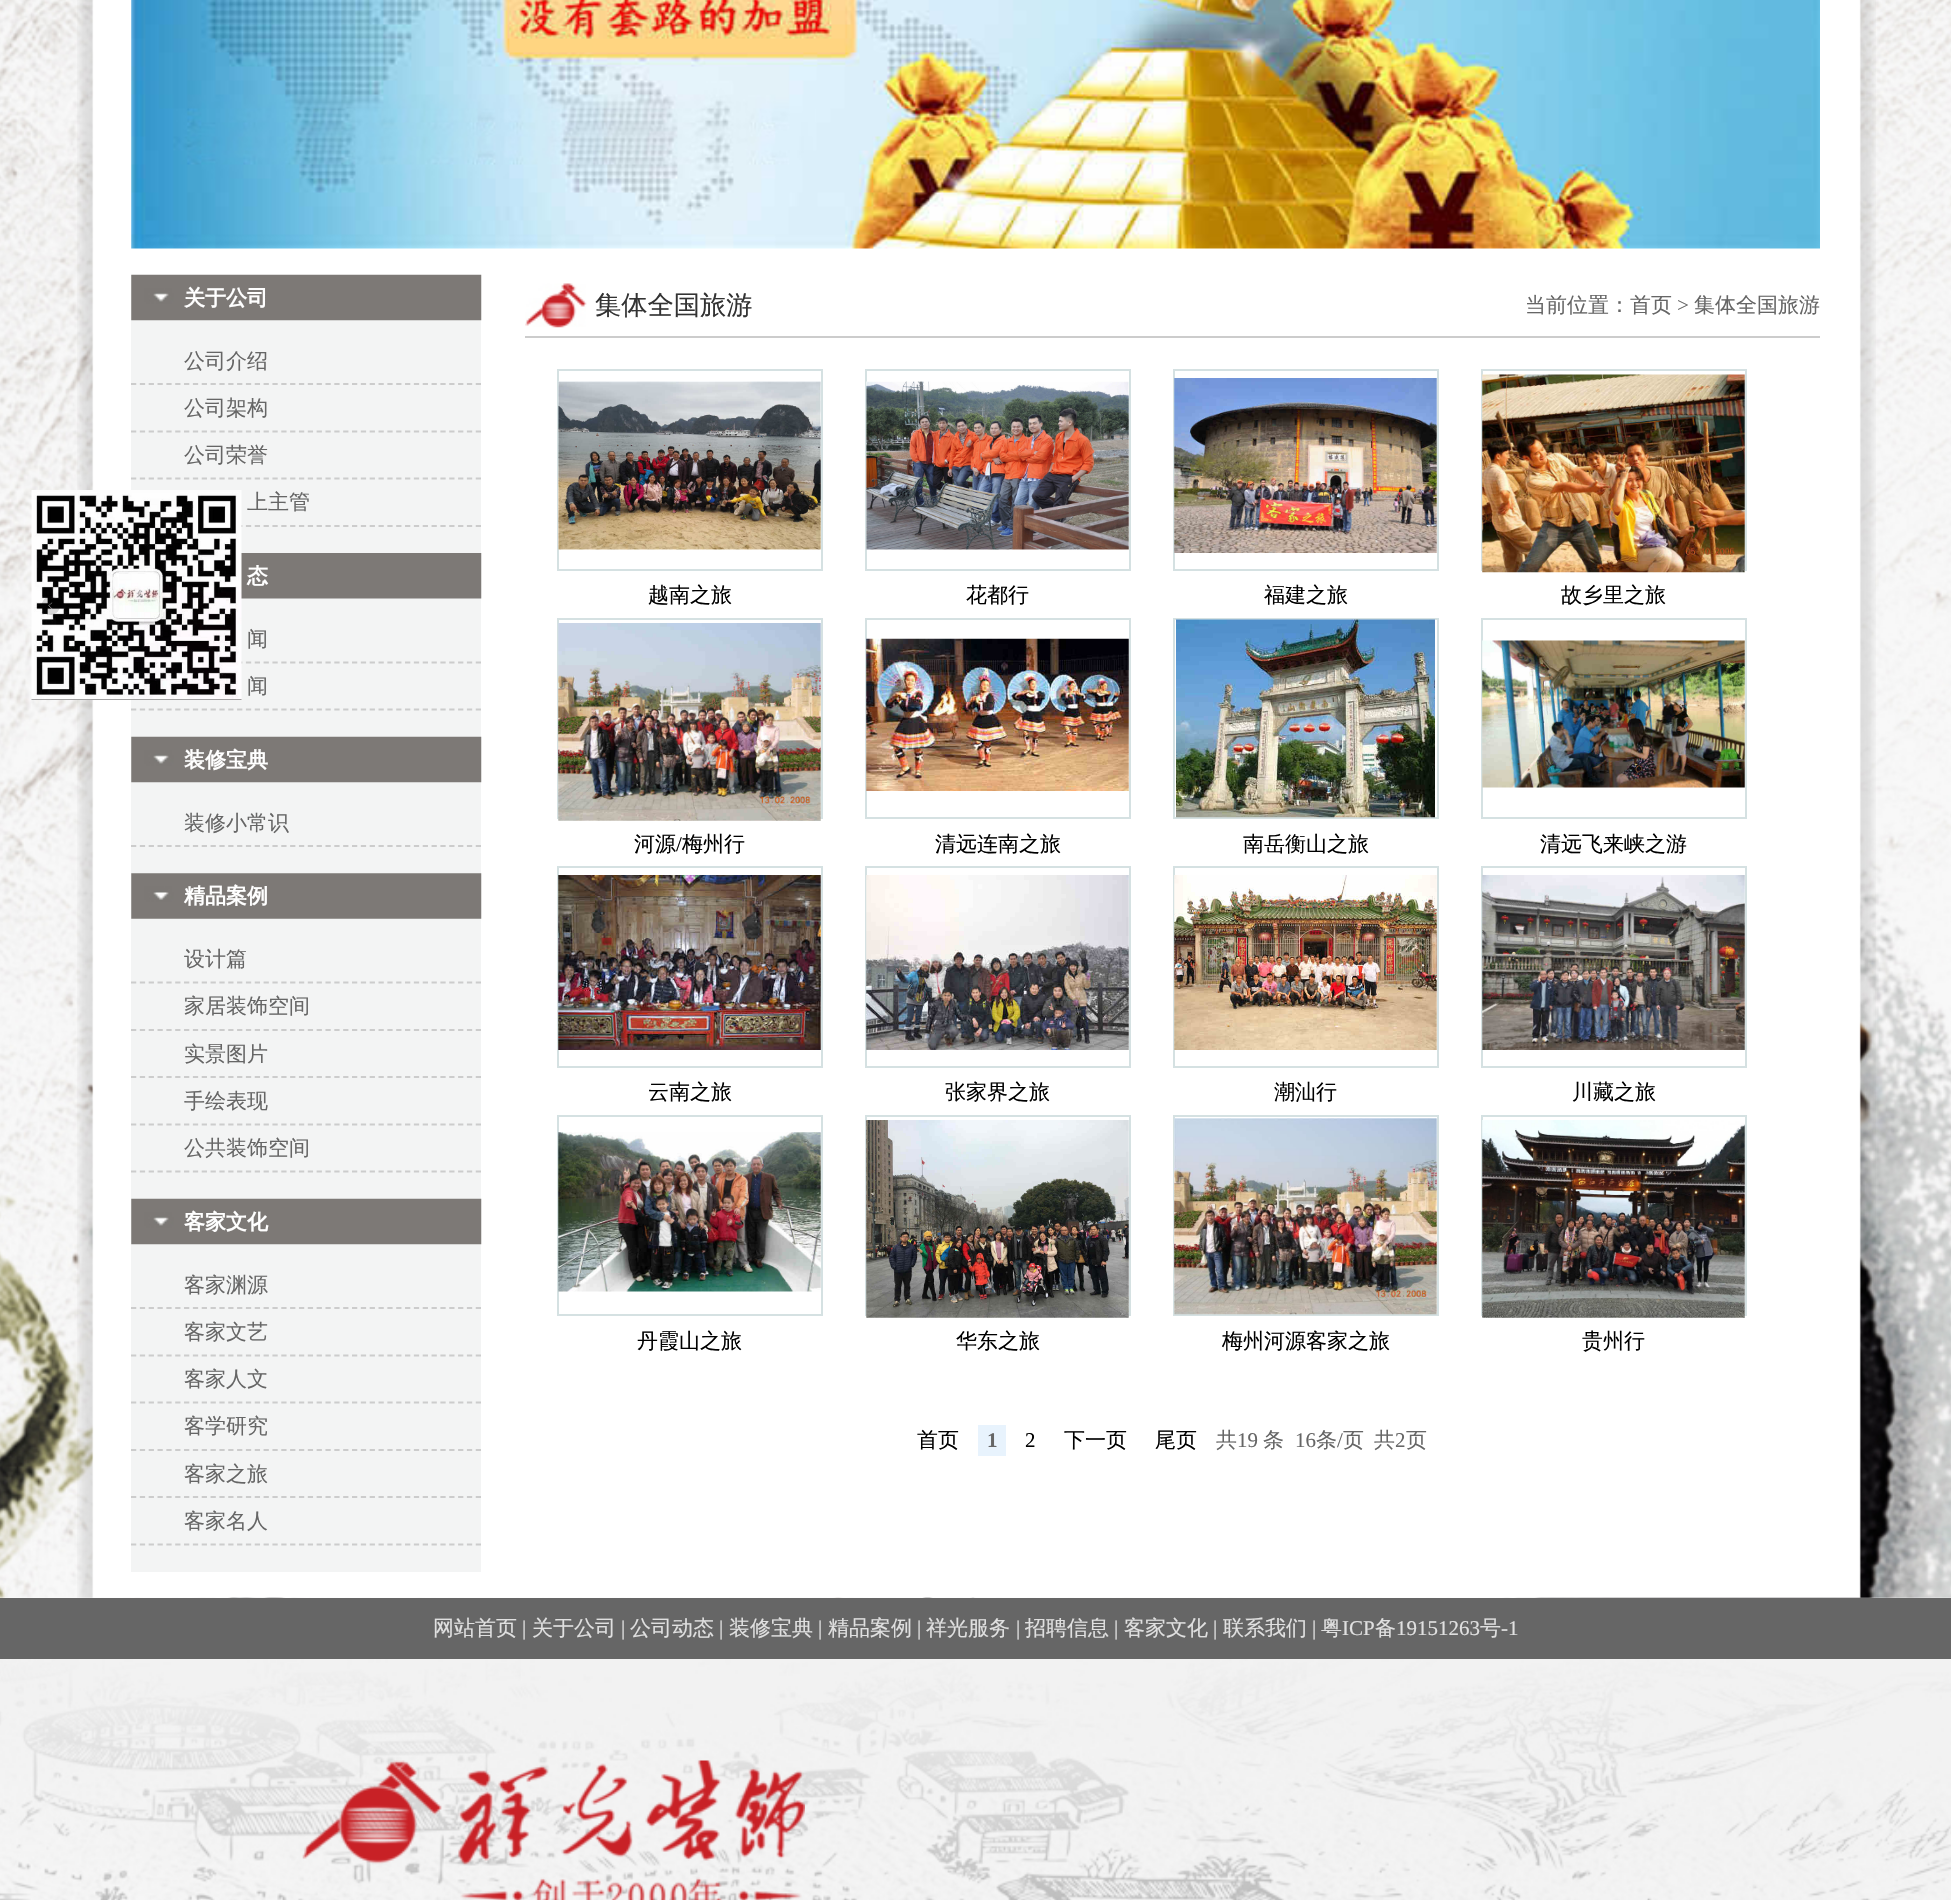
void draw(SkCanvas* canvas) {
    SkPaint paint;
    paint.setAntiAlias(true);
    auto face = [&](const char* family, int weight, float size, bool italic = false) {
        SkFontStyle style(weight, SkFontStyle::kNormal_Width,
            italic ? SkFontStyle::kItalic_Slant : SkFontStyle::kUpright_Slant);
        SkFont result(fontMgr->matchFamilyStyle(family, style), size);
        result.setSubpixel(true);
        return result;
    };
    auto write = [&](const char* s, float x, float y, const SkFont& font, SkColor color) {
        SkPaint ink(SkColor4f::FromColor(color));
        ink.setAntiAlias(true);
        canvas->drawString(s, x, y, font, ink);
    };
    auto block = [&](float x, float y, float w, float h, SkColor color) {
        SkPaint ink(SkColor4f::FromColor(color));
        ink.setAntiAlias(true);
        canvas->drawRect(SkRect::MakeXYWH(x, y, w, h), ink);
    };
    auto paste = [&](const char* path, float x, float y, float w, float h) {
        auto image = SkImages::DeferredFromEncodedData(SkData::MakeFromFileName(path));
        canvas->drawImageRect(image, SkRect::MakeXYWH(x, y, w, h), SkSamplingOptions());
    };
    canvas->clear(SK_ColorWHITE);
    paste("pic2.png", 0, 0, 1951, 1598);
    paste("pic3.png", 77, 0, 1799, 1598);
    block(131, 275, 350, 1297, SkColorSetRGB(243, 244, 244));
    paint.setStyle(SkPaint::kStroke_Style);
    paint.setStrokeWidth(1.8f);
    paint.setColor(SkColorSetRGB(204, 204, 204));
    paint.setPathEffect(SkDashPathEffect::Make({{5.25f, 3.59f}}, 0));
    canvas->drawPath(SkPathBuilder().moveTo(131, 526).lineTo(481, 526).detach(), paint);
    paint.setPathEffect(nullptr);
    paste("pic6.png", 241, 553, 241, 46);
    paint.setPathEffect(SkDashPathEffect::Make({{5.25f, 3.59f}}, 0));
    canvas->drawPath(SkPathBuilder().moveTo(131, 662.5f).lineTo(481, 662.5f).detach(), paint);
    paint.setPathEffect(nullptr);
    paste("pic1.png", 31, 490, 211, 210);
    paste("pic4.png", 131, 0, 1689, 249);
    paste("pic5.png", 131, 274, 351, 47);
    auto kFont1 = face("WenQuanYi Zen Hei", 700, 21);
    write("关于公司", 184, 305, kFont1, SK_ColorWHITE);
    paint.setPathEffect(SkDashPathEffect::Make({{5.25f, 3.59f}}, 0));
    canvas->drawPath(SkPathBuilder().moveTo(131, 384).lineTo(481, 384).detach(), paint);
    paint.setPathEffect(nullptr);
    auto kFont2 = face("WenQuanYi Zen Hei", 500, 21);
    write("公司介绍", 184, 368, kFont2, SkColorSetRGB(102, 102, 102));
    paint.setPathEffect(SkDashPathEffect::Make({{5.25f, 3.59f}}, 0));
    canvas->drawPath(SkPathBuilder().moveTo(131, 431.5f).lineTo(481, 431.5f).detach(), paint);
    paint.setPathEffect(nullptr);
    write("公司架构", 184, 415, kFont2, SkColorSetRGB(102, 102, 102));
    paint.setPathEffect(SkDashPathEffect::Make({{5.25f, 3.59f}}, 0));
    canvas->drawPath(SkPathBuilder().moveTo(131, 478.5f).lineTo(481, 478.5f).detach(), paint);
    paint.setPathEffect(nullptr);
    write("公司荣誉", 184, 462, kFont2, SkColorSetRGB(102, 102, 102));
    write("上主管", 247, 509, kFont2, SkColorSetRGB(102, 102, 102));
    write("态", 247, 583, kFont1, SK_ColorWHITE);
    write("闻", 247, 646, kFont2, SkColorSetRGB(102, 102, 102));
    paint.setPathEffect(SkDashPathEffect::Make({{5.25f, 3.59f}}, 0));
    canvas->drawPath(SkPathBuilder().moveTo(131, 709.5f).lineTo(481, 709.5f).detach(), paint);
    paint.setPathEffect(nullptr);
    write("闻", 247, 693, kFont2, SkColorSetRGB(102, 102, 102));
    paste("pic7.png", 131, 736, 351, 47);
    write("装修宝典", 184, 767, kFont1, SK_ColorWHITE);
    paint.setPathEffect(SkDashPathEffect::Make({{5.25f, 3.59f}}, 0));
    canvas->drawPath(SkPathBuilder().moveTo(131, 846).lineTo(481, 846).detach(), paint);
    paint.setPathEffect(nullptr);
    write("装修小常识", 184, 830, kFont2, SkColorSetRGB(102, 102, 102));
    paste("pic8.png", 131, 873, 351, 46);
    write("精品案例", 184, 903, kFont1, SK_ColorWHITE);
    paint.setPathEffect(SkDashPathEffect::Make({{5.25f, 3.59f}}, 0));
    canvas->drawPath(SkPathBuilder().moveTo(131, 982.5f).lineTo(481, 982.5f).detach(), paint);
    paint.setPathEffect(nullptr);
    write("设计篇", 184, 966, kFont2, SkColorSetRGB(102, 102, 102));
    paint.setPathEffect(SkDashPathEffect::Make({{5.25f, 3.59f}}, 0));
    canvas->drawPath(SkPathBuilder().moveTo(131, 1030).lineTo(481, 1030).detach(), paint);
    paint.setPathEffect(nullptr);
    write("家居装饰空间", 184, 1013, kFont2, SkColorSetRGB(102, 102, 102));
    paint.setPathEffect(SkDashPathEffect::Make({{5.25f, 3.59f}}, 0));
    canvas->drawPath(SkPathBuilder().moveTo(131, 1077).lineTo(481, 1077).detach(), paint);
    paint.setPathEffect(nullptr);
    write("实景图片", 184, 1061, kFont2, SkColorSetRGB(102, 102, 102));
    paint.setPathEffect(SkDashPathEffect::Make({{5.25f, 3.59f}}, 0));
    canvas->drawPath(SkPathBuilder().moveTo(131, 1124.5f).lineTo(481, 1124.5f).detach(), paint);
    paint.setPathEffect(nullptr);
    write("手绘表现", 184, 1108, kFont2, SkColorSetRGB(102, 102, 102));
    paint.setPathEffect(SkDashPathEffect::Make({{5.25f, 3.59f}}, 0));
    canvas->drawPath(SkPathBuilder().moveTo(131, 1171.5f).lineTo(481, 1171.5f).detach(), paint);
    paint.setPathEffect(nullptr);
    write("公共装饰空间", 184, 1155, kFont2, SkColorSetRGB(102, 102, 102));
    paste("pic7.png", 131, 1198, 351, 47);
    write("客家文化", 184, 1229, kFont1, SK_ColorWHITE);
    paint.setPathEffect(SkDashPathEffect::Make({{5.25f, 3.59f}}, 0));
    canvas->drawPath(SkPathBuilder().moveTo(131, 1308).lineTo(481, 1308).detach(), paint);
    paint.setPathEffect(nullptr);
    write("客家渊源", 184, 1292, kFont2, SkColorSetRGB(102, 102, 102));
    paint.setPathEffect(SkDashPathEffect::Make({{5.25f, 3.59f}}, 0));
    canvas->drawPath(SkPathBuilder().moveTo(131, 1355.5f).lineTo(481, 1355.5f).detach(), paint);
    paint.setPathEffect(nullptr);
    write("客家文艺", 184, 1339, kFont2, SkColorSetRGB(102, 102, 102));
    paint.setPathEffect(SkDashPathEffect::Make({{5.25f, 3.59f}}, 0));
    canvas->drawPath(SkPathBuilder().moveTo(131, 1402.5f).lineTo(481, 1402.5f).detach(), paint);
    paint.setPathEffect(nullptr);
    write("客家人文", 184, 1386, kFont2, SkColorSetRGB(102, 102, 102));
    paint.setPathEffect(SkDashPathEffect::Make({{5.25f, 3.59f}}, 0));
    canvas->drawPath(SkPathBuilder().moveTo(131, 1450).lineTo(481, 1450).detach(), paint);
    paint.setPathEffect(nullptr);
    write("客学研究", 184, 1433, kFont2, SkColorSetRGB(102, 102, 102));
    paint.setPathEffect(SkDashPathEffect::Make({{5.25f, 3.59f}}, 0));
    canvas->drawPath(SkPathBuilder().moveTo(131, 1497).lineTo(481, 1497).detach(), paint);
    paint.setPathEffect(nullptr);
    write("客家之旅", 184, 1481, kFont2, SkColorSetRGB(102, 102, 102));
    paint.setPathEffect(SkDashPathEffect::Make({{5.25f, 3.59f}}, 0));
    canvas->drawPath(SkPathBuilder().moveTo(131, 1544.5f).lineTo(481, 1544.5f).detach(), paint);
    paint.setPathEffect(nullptr);
    write("客家名人", 184, 1528, kFont2, SkColorSetRGB(102, 102, 102));
    block(525, 336, 1295, 2, SkColorSetRGB(204, 204, 204));
    paste("pic9.png", 525, 283, 62, 45);
    auto kFont3 = face("WenQuanYi Zen Hei", 500, 26.25f);
    write("集体全国旅游", 595, 314, kFont3, SkColorSetRGB(51, 51, 51));
    write("当前位置：首页", 1525, 312, kFont2, SkColorSetRGB(102, 102, 102));
    auto kFont4 = face("Liberation Serif", 400, 21);
    write(">", 1677, 312, kFont4, SkColorSetRGB(102, 102, 102));
    write("集体全国旅游", 1694, 312, kFont2, SkColorSetRGB(102, 102, 102));
    paint.setStrokeWidth(2);
    paint.setColor(SkColorSetRGB(213, 225, 226));
    canvas->drawRect(SkRect::MakeXYWH(558, 370, 264, 200), paint);
    paste("pic10.png", 558, 381, 263, 169);
    write("越南之旅", 648, 602, kFont2, SK_ColorBLACK);
    canvas->drawRect(SkRect::MakeXYWH(866, 370, 264, 200), paint);
    paste("pic11.png", 866, 381, 263, 169);
    write("花都行", 966, 602, kFont2, SK_ColorBLACK);
    canvas->drawRect(SkRect::MakeXYWH(1174, 370, 264, 200), paint);
    paste("pic12.png", 1174, 378, 263, 175);
    write("福建之旅", 1264, 602, kFont2, SK_ColorBLACK);
    canvas->drawRect(SkRect::MakeXYWH(1482, 370, 264, 200), paint);
    paste("pic13.png", 1482, 374, 263, 199);
    write("故乡里之旅", 1561, 602, kFont2, SK_ColorBLACK);
    canvas->drawRect(SkRect::MakeXYWH(558, 619, 264, 199), paint);
    paste("pic14.png", 558, 623, 263, 198);
    write("河源", 634, 851, kFont2, SK_ColorBLACK);
    write("/", 676, 851, kFont4, SK_ColorBLACK);
    write("梅州行", 682, 851, kFont2, SK_ColorBLACK);
    canvas->drawRect(SkRect::MakeXYWH(866, 619, 264, 199), paint);
    paste("pic15.png", 866, 638, 263, 153);
    write("清远连南之旅", 935, 851, kFont2, SK_ColorBLACK);
    canvas->drawRect(SkRect::MakeXYWH(1174, 619, 264, 199), paint);
    paste("pic16.png", 1176, 619, 259, 199);
    write("南岳衡山之旅", 1243, 851, kFont2, SK_ColorBLACK);
    canvas->drawRect(SkRect::MakeXYWH(1482, 619, 264, 199), paint);
    paste("pic17.png", 1482, 640, 263, 148);
    write("清远飞来峡之游", 1540, 851, kFont2, SK_ColorBLACK);
    canvas->drawRect(SkRect::MakeXYWH(558, 867, 264, 200), paint);
    paste("pic18.png", 558, 875, 263, 175);
    write("云南之旅", 648, 1099, kFont2, SK_ColorBLACK);
    canvas->drawRect(SkRect::MakeXYWH(866, 867, 264, 200), paint);
    paste("pic19.png", 866, 875, 263, 175);
    write("张家界之旅", 945, 1099, kFont2, SK_ColorBLACK);
    canvas->drawRect(SkRect::MakeXYWH(1174, 867, 264, 200), paint);
    paste("pic20.png", 1174, 875, 263, 175);
    write("潮汕行", 1274, 1099, kFont2, SK_ColorBLACK);
    canvas->drawRect(SkRect::MakeXYWH(1482, 867, 264, 200), paint);
    paste("pic21.png", 1482, 875, 263, 175);
    write("川藏之旅", 1572, 1099, kFont2, SK_ColorBLACK);
    canvas->drawRect(SkRect::MakeXYWH(558, 1116, 264, 199), paint);
    paste("pic22.png", 558, 1132, 263, 160);
    write("丹霞山之旅", 637, 1348, kFont2, SK_ColorBLACK);
    canvas->drawRect(SkRect::MakeXYWH(866, 1116, 264, 199), paint);
    paste("pic23.png", 866, 1120, 263, 198);
    write("华东之旅", 956, 1348, kFont2, SK_ColorBLACK);
    canvas->drawRect(SkRect::MakeXYWH(1174, 1116, 264, 199), paint);
    paste("pic24.png", 1174, 1118, 263, 197);
    write("梅州河源客家之旅", 1222, 1348, kFont2, SK_ColorBLACK);
    canvas->drawRect(SkRect::MakeXYWH(1482, 1116, 264, 199), paint);
    paste("pic25.png", 1482, 1120, 263, 198);
    write("贵州行", 1582, 1348, kFont2, SK_ColorBLACK);
    write("首页", 917, 1447, kFont2, SK_ColorBLACK);
    block(978, 1425, 28, 31, SkColorSetRGB(232, 243, 253));
    auto kFont5 = face("Liberation Serif", 700, 21);
    write("1", 987, 1447, kFont5, SkColorSetRGB(102, 102, 102));
    write("2", 1025, 1447, kFont4, SK_ColorBLACK);
    write("下一页", 1064, 1447, kFont2, SK_ColorBLACK);
    write("尾页", 1155, 1447, kFont2, SK_ColorBLACK);
    write("共", 1216, 1447, kFont2, SkColorSetRGB(102, 102, 102));
    write("19", 1237, 1447, kFont4, SkColorSetRGB(102, 102, 102));
    write("条", 1263, 1447, kFont2, SkColorSetRGB(102, 102, 102));
    write("16", 1295, 1447, kFont4, SkColorSetRGB(102, 102, 102));
    write("条", 1316, 1447, kFont2, SkColorSetRGB(102, 102, 102));
    write("/", 1337, 1447, kFont4, SkColorSetRGB(102, 102, 102));
    write("页", 1343, 1447, kFont2, SkColorSetRGB(102, 102, 102));
    write("共", 1374, 1447, kFont2, SkColorSetRGB(102, 102, 102));
    write("2", 1395, 1447, kFont4, SkColorSetRGB(102, 102, 102));
    write("页", 1406, 1447, kFont2, SkColorSetRGB(102, 102, 102));
    block(0, 1598, 1951, 61, SkColorSetRGB(102, 102, 102));
    write("网站首页", 433, 1635, kFont2, SkColorSetRGB(224, 224, 224));
    write("|", 522, 1635, kFont4, SkColorSetRGB(224, 224, 224));
    write("关于公司", 532, 1635, kFont2, SkColorSetRGB(224, 224, 224));
    write("|", 621, 1635, kFont4, SkColorSetRGB(224, 224, 224));
    write("公司动态", 630, 1635, kFont2, SkColorSetRGB(224, 224, 224));
    write("|", 719, 1635, kFont4, SkColorSetRGB(224, 224, 224));
    write("装修宝典", 729, 1635, kFont2, SkColorSetRGB(224, 224, 224));
    write("|", 818, 1635, kFont4, SkColorSetRGB(224, 224, 224));
    write("精品案例", 828, 1635, kFont2, SkColorSetRGB(224, 224, 224));
    write("|", 917, 1635, kFont4, SkColorSetRGB(224, 224, 224));
    write("祥光服务", 926, 1635, kFont2, SkColorSetRGB(224, 224, 224));
    write("|", 1016, 1635, kFont4, SkColorSetRGB(224, 224, 224));
    write("招聘信息", 1025, 1635, kFont2, SkColorSetRGB(224, 224, 224));
    write("|", 1114, 1635, kFont4, SkColorSetRGB(224, 224, 224));
    write("客家文化", 1124, 1635, kFont2, SkColorSetRGB(224, 224, 224));
    write("|", 1213, 1635, kFont4, SkColorSetRGB(224, 224, 224));
    write("联系我们", 1223, 1635, kFont2, SkColorSetRGB(224, 224, 224));
    write("|", 1312, 1635, kFont4, SkColorSetRGB(224, 224, 224));
    write("粤", 1321, 1635, kFont2, SkColorSetRGB(224, 224, 224));
    write("ICP", 1342, 1635, kFont4, SkColorSetRGB(224, 224, 224));
    write("备", 1375, 1635, kFont2, SkColorSetRGB(224, 224, 224));
    write("19151263", 1396, 1635, kFont4, SkColorSetRGB(224, 224, 224));
    write("号", 1480, 1635, kFont2, SkColorSetRGB(224, 224, 224));
    write("-1", 1501, 1635, kFont4, SkColorSetRGB(224, 224, 224));
    paste("pic26.png", 0, 1659, 1951, 241);
    paste("pic27.png", 302, 1760, 503, 140);
}
